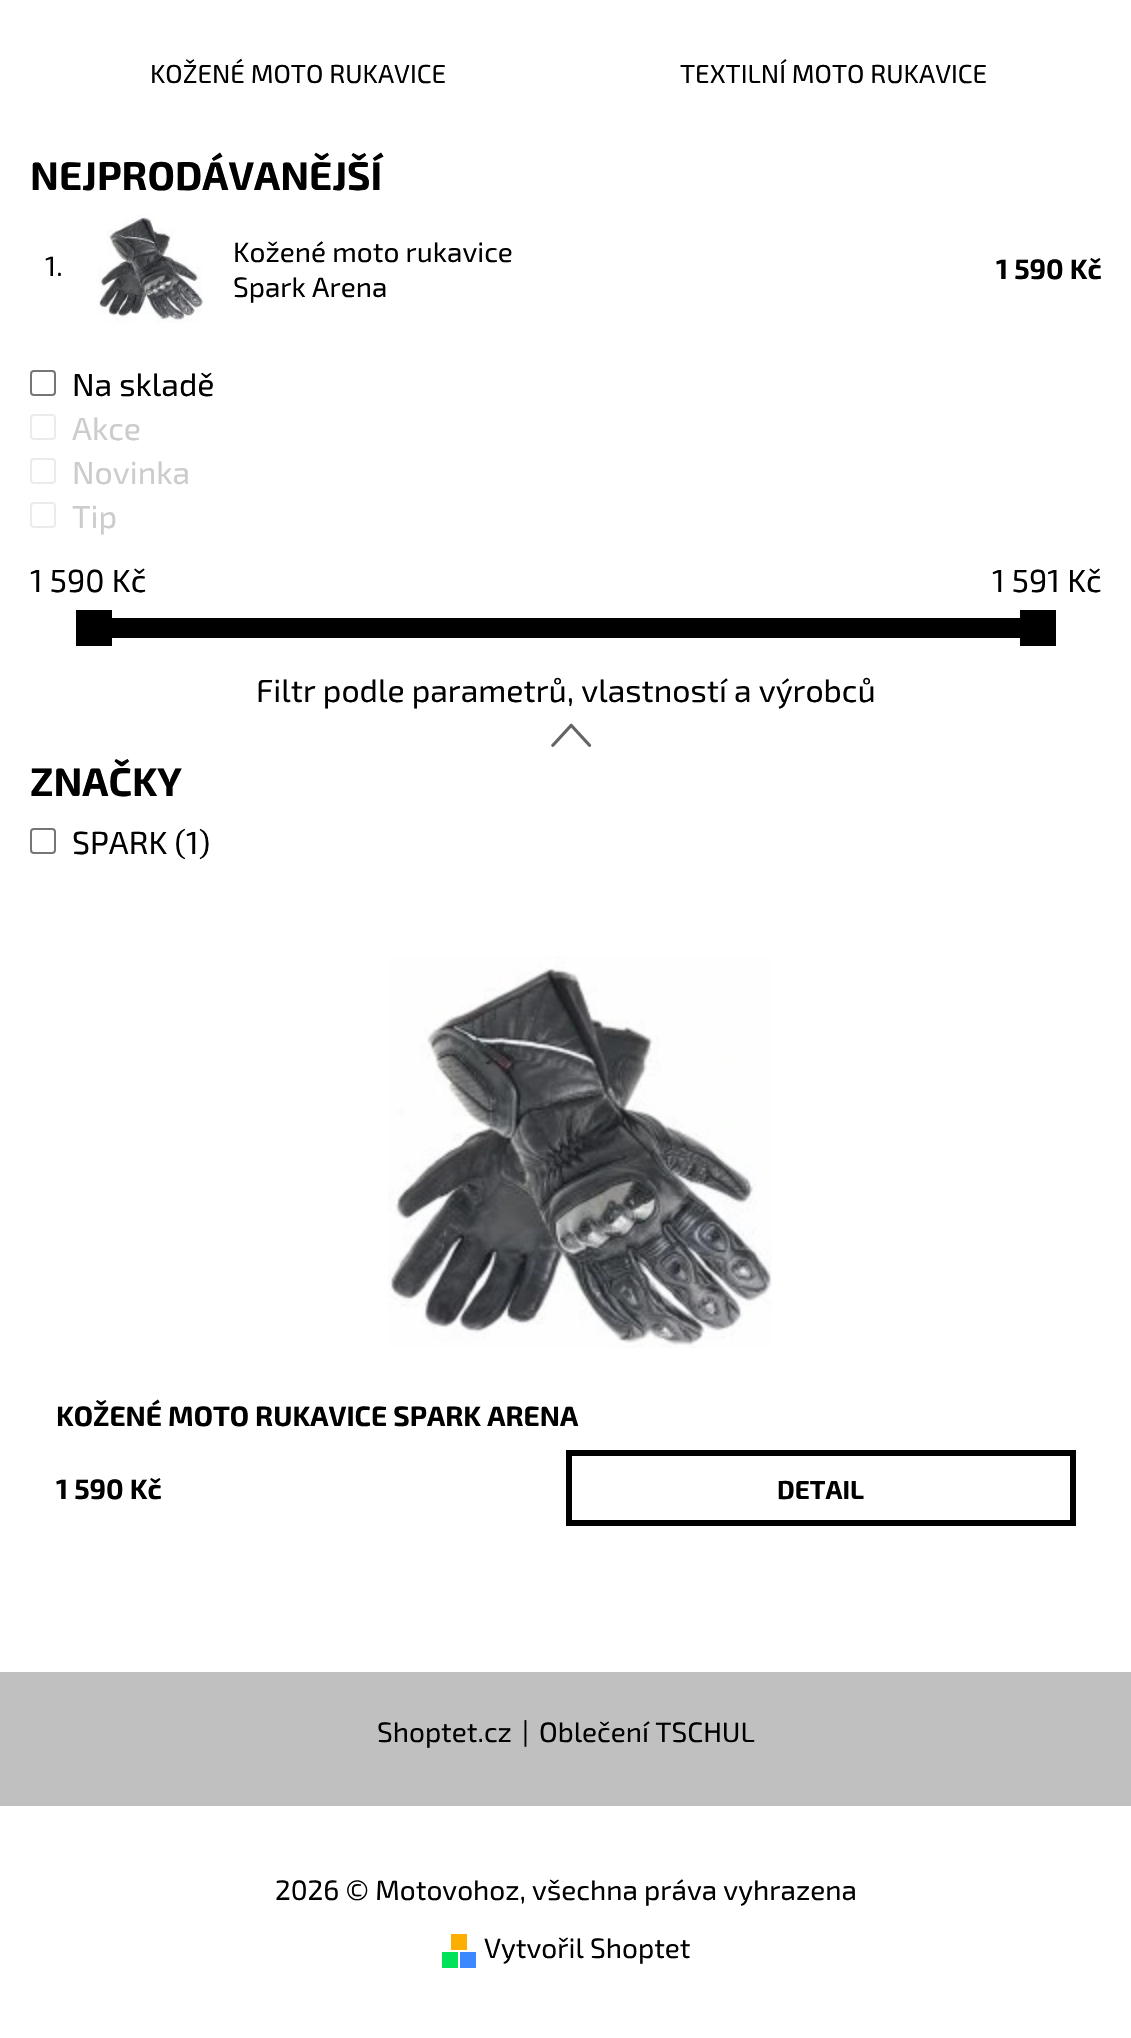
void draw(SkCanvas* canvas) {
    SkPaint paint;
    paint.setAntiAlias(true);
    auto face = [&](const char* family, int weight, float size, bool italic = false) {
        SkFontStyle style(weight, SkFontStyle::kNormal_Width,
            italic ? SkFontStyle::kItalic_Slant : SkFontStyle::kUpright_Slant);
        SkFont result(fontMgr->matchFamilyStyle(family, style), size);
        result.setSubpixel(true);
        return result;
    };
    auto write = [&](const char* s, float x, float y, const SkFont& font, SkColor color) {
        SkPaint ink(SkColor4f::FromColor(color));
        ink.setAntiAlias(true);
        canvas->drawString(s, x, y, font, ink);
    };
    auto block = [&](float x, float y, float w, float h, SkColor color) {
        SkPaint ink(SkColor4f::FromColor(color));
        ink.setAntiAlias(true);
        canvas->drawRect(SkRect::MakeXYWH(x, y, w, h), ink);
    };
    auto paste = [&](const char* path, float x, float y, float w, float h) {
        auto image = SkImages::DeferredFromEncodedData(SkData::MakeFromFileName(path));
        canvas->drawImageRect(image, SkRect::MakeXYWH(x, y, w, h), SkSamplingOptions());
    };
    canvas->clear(SK_ColorWHITE);
    auto kFont1 = face("Exo 2", 400, 26);
    write("KOŽENÉ MOTO RUKAVICE", 150, 83, kFont1, SK_ColorBLACK);
    write("TEXTILNÍ MOTO RUKAVICE", 680, 83, kFont1, SK_ColorBLACK);
    auto kFont2 = face("Exo 2", 700, 40);
    write("NEJPRODÁVANĚJŠÍ", 30, 190, kFont2, SK_ColorBLACK);
    auto kFont3 = face("Exo 2", 400, 28);
    write("1.", 45, 276, kFont3, SK_ColorBLACK);
    paste("pic1.png", 98, 215, 107, 108);
    write("Kožené moto rukavice", 233, 262, kFont3, SK_ColorBLACK);
    write("Spark Arena", 233, 297, kFont3, SK_ColorBLACK);
    auto kFont4 = face("Exo 2", 700, 28);
    write("1 590 Kč", 996, 279, kFont4, SK_ColorBLACK);
    paint.setStyle(SkPaint::kStroke_Style);
    paint.setStrokeWidth(2);
    paint.setColor(SkColorSetRGB(118, 118, 118));
    canvas->drawRoundRect(SkRect::MakeXYWH(31, 371, 24, 24), 3, 3, paint);
    auto kFont5 = face("Exo 2", 400, 32);
    write("Na skladě", 72, 396, kFont5, SK_ColorBLACK);
    paint.setColor(SkColorSetRGB(235, 235, 235));
    canvas->drawRoundRect(SkRect::MakeXYWH(31, 415, 24, 24), 3, 3, paint);
    write("Akce", 72, 440, kFont5, SkColorSetRGB(204, 204, 204));
    canvas->drawRoundRect(SkRect::MakeXYWH(31, 459, 24, 24), 3, 3, paint);
    write("Novinka", 72, 484, kFont5, SkColorSetRGB(204, 204, 204));
    canvas->drawRoundRect(SkRect::MakeXYWH(31, 503, 24, 24), 3, 3, paint);
    write("Tip", 72, 528, kFont5, SkColorSetRGB(204, 204, 204));
    write("1 590 Kč", 30, 592, kFont5, SK_ColorBLACK);
    write("1 591 Kč", 992, 592, kFont5, SK_ColorBLACK);
    block(76, 610, 36, 36, SK_ColorBLACK);
    block(112, 618, 908, 20, SK_ColorBLACK);
    block(1020, 610, 36, 36, SK_ColorBLACK);
    write("Filtr podle parametrů, vlastností a výrobců", 256, 702, kFont5, SK_ColorBLACK);
    paste("pic2.png", 551, 723, 41, 24);
    write("ZNAČKY", 30, 796, kFont2, SK_ColorBLACK);
    paint.setColor(SkColorSetRGB(118, 118, 118));
    canvas->drawRoundRect(SkRect::MakeXYWH(31, 829, 24, 24), 3, 3, paint);
    write("SPARK (1)", 72, 854, kFont5, SK_ColorBLACK);
    paste("pic3.png", 388, 956, 384, 392);
    write("KOŽENÉ MOTO RUKAVICE SPARK ARENA", 56, 1426, kFont4, SK_ColorBLACK);
    write("1 590 Kč", 56, 1499, kFont4, SK_ColorBLACK);
    paint.setStrokeWidth(4);
    paint.setColor(SK_ColorBLACK);
    canvas->drawRect(SkRect::MakeXYWH(570, 1454, 502, 68), paint);
    paint.setStrokeWidth(2);
    canvas->drawRect(SkRect::MakeXYWH(567, 1451, 508, 74), paint);
    auto kFont6 = face("Exo 2", 700, 26);
    write("DETAIL", 777, 1499, kFont6, SK_ColorBLACK);
    block(0, 1672, 1131, 134, SkColorSetRGB(192, 192, 192));
    write("Shoptet.cz", 377, 1742, kFont3, SK_ColorBLACK);
    write("|", 522, 1742, kFont3, SK_ColorBLACK);
    write("Oblečení TSCHUL", 539, 1742, kFont3, SK_ColorBLACK);
    write("2026 © Motovohoz, všechna práva vyhrazena", 275, 1900, kFont3, SK_ColorBLACK);
    block(451, 1934, 16, 16, SkColorSetRGB(252, 175, 0));
    block(442, 1952, 16, 16, SkColorSetRGB(0, 226, 90));
    block(460, 1952, 16, 16, SkColorSetRGB(59, 136, 255));
    write("Vytvořil Shoptet", 484, 1958, kFont3, SK_ColorBLACK);
}
